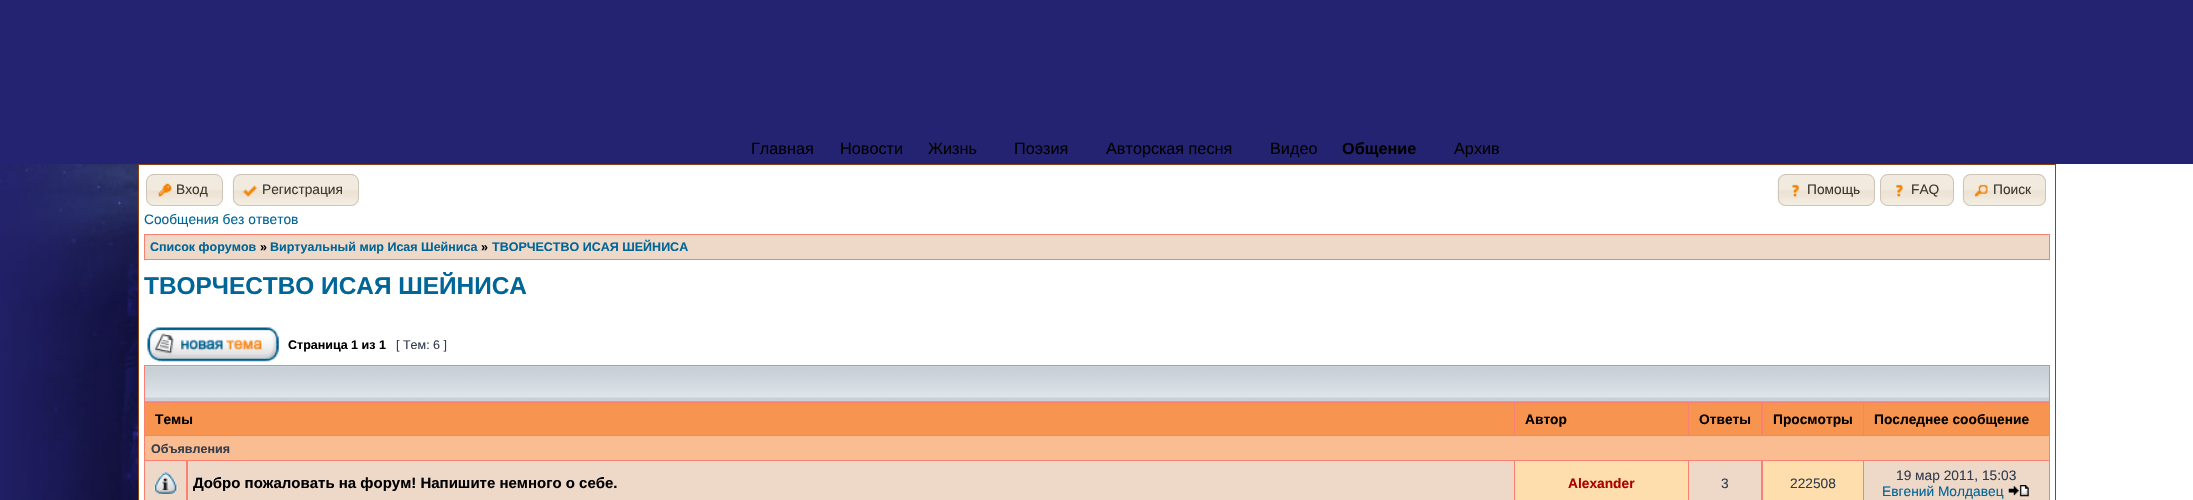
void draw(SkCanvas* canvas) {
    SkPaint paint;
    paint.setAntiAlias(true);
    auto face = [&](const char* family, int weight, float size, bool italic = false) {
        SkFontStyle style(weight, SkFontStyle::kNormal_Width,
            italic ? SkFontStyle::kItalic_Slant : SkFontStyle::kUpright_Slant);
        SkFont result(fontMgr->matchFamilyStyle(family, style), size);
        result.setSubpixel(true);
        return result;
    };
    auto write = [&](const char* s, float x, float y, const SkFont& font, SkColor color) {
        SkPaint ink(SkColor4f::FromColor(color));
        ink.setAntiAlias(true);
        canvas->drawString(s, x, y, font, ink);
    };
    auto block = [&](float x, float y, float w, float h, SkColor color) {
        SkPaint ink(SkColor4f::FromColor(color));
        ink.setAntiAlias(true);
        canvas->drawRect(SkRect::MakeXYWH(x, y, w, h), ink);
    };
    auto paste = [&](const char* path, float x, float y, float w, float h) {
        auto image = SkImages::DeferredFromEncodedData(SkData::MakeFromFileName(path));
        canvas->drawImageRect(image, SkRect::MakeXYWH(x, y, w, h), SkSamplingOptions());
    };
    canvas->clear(SK_ColorWHITE);
    paste("pic1.png", 0, 164, 138, 336);
    block(0, 0, 2193, 164, SkColorSetRGB(36, 35, 113));
    auto kFont1 = face("Liberation Sans", 400, 16.25f);
    write("Главная", 751, 154, kFont1, SK_ColorBLACK);
    write("Новости", 840, 154, kFont1, SK_ColorBLACK);
    write("Жизнь", 928, 154, kFont1, SK_ColorBLACK);
    write("Поэзия", 1014, 154, kFont1, SK_ColorBLACK);
    write("Авторская песня", 1106, 154, kFont1, SK_ColorBLACK);
    write("Видео", 1270, 154, kFont1, SK_ColorBLACK);
    auto kFont2 = face("Liberation Sans", 700, 16.25f);
    write("Общение", 1342, 154, kFont2, SK_ColorBLACK);
    write("Архив", 1454, 154, kFont1, SK_ColorBLACK);
    block(138, 164, 1918, 1, SkColorSetRGB(139, 69, 19));
    block(2055, 164, 1, 336, SkColorSetRGB(139, 69, 19));
    block(138, 164, 1, 336, SkColorSetRGB(139, 69, 19));
    paste("pic2.png", 146, 174, 76, 32);
    paint.setStyle(SkPaint::kStroke_Style);
    paint.setStrokeWidth(1);
    paint.setColor(SkColorSetRGB(205, 195, 183));
    canvas->drawRoundRect(SkRect::MakeXYWH(146.5f, 174.5f, 76, 31), 7.5f, 7.5f, paint);
    paste("pic3.png", 158, 183, 14, 14);
    auto kFont3 = face("Liberation Sans", 400, 13.75f);
    write("Вход", 176, 194, kFont3, SkColorSetRGB(63, 55, 49));
    paste("pic4.png", 232, 174, 127, 32);
    canvas->drawRoundRect(SkRect::MakeXYWH(233.5f, 174.5f, 125, 31), 7.5f, 7.5f, paint);
    paste("pic5.png", 242, 185, 16, 12);
    write("Регистрация", 262, 194, kFont3, SkColorSetRGB(63, 55, 49));
    paste("pic6.png", 1777, 174, 98, 32);
    canvas->drawRoundRect(SkRect::MakeXYWH(1778.5f, 174.5f, 96, 31), 7.5f, 7.5f, paint);
    paste("pic7.png", 1792, 184, 7, 13);
    write("Помощь", 1807, 194, kFont3, SkColorSetRGB(63, 55, 49));
    paste("pic8.png", 1880, 174, 74, 32);
    canvas->drawRoundRect(SkRect::MakeXYWH(1880.5f, 174.5f, 73, 31), 7.5f, 7.5f, paint);
    paste("pic9.png", 1896, 184, 7, 13);
    write("FAQ", 1911, 194, kFont3, SkColorSetRGB(63, 55, 49));
    paste("pic10.png", 1962, 174, 84, 32);
    canvas->drawRoundRect(SkRect::MakeXYWH(1963.5f, 174.5f, 82, 31), 7.5f, 7.5f, paint);
    paste("pic11.png", 1974, 184, 14, 13);
    write("Поиск", 1993, 194, kFont3, SkColorSetRGB(63, 55, 49));
    write("Сообщения без ответов", 144, 224, kFont3, SkColorSetRGB(0, 101, 151));
    block(144, 234, 1906, 26, SkColorSetRGB(250, 128, 114));
    block(145, 235, 1904, 24, SkColorSetRGB(238, 216, 200));
    auto kFont4 = face("Liberation Sans", 700, 12.5f);
    write("Список форумов", 150, 251, kFont4, SkColorSetRGB(0, 101, 151));
    write("»", 260, 251, kFont4, SK_ColorBLACK);
    write("Виртуальный мир Исая Шейниса", 270, 251, kFont4, SkColorSetRGB(0, 101, 151));
    write("»", 481, 251, kFont4, SK_ColorBLACK);
    write("ТВОРЧЕСТВО ИСАЯ ШЕЙНИСА", 492, 251, kFont4, SkColorSetRGB(0, 101, 151));
    auto kFont5 = face("Liberation Sans", 700, 24.4f);
    write("ТВОРЧЕСТВО ИСАЯ ШЕЙНИСА", 144, 294, kFont5, SkColorSetRGB(0, 101, 151));
    paste("pic12.png", 147, 327, 132, 35);
    write("Страница 1 из 1", 288, 349, kFont4, SK_ColorBLACK);
    auto kFont6 = face("Liberation Sans", 400, 12.5f);
    write("[ Тем: 6 ]", 396, 349, kFont6, SkColorSetRGB(50, 61, 79));
    block(144, 365, 1906, 135, SkColorSetRGB(250, 128, 114));
    block(145, 366, 1904, 35, SkColorSetRGB(199, 208, 215));
    paste("pic13.png", 145, 366, 1904, 36);
    block(145, 403, 1369, 32, SkColorSetRGB(247, 148, 79));
    auto kFont7 = face("Liberation Sans", 700, 13.75f);
    write("Темы", 155, 424, kFont7, SK_ColorBLACK);
    block(1515, 403, 173, 32, SkColorSetRGB(247, 148, 79));
    write("Автор", 1525, 424, kFont7, SK_ColorBLACK);
    block(1689, 403, 72, 32, SkColorSetRGB(247, 148, 79));
    write("Ответы", 1699, 424, kFont7, SK_ColorBLACK);
    block(1763, 403, 100, 32, SkColorSetRGB(247, 148, 79));
    write("Просмотры", 1773, 424, kFont7, SK_ColorBLACK);
    block(1864, 403, 185, 32, SkColorSetRGB(247, 148, 79));
    write("Последнее сообщение", 1874, 424, kFont7, SK_ColorBLACK);
    block(145, 436, 1904, 24, SkColorSetRGB(250, 188, 145));
    write("Объявления", 151, 453, kFont4, SkColorSetRGB(50, 61, 79));
    block(145, 461, 41, 39, SkColorSetRGB(238, 216, 200));
    paste("pic14.png", 153, 472, 25, 22);
    block(188, 461, 1326, 39, SkColorSetRGB(238, 216, 200));
    auto kFont8 = face("Liberation Sans", 700, 15);
    write("Добро пожаловать на форум! Напишите немного о себе.", 193, 488, kFont8, SK_ColorBLACK);
    block(1515, 461, 173, 39, SkColorSetRGB(255, 222, 173));
    write("Alexander", 1568, 488, kFont7, SkColorSetRGB(170, 0, 0));
    block(1689, 461, 72, 39, SkColorSetRGB(238, 216, 200));
    write("3", 1721, 488, kFont3, SkColorSetRGB(50, 61, 79));
    block(1763, 461, 100, 39, SkColorSetRGB(255, 222, 173));
    write("222508", 1790, 488, kFont3, SkColorSetRGB(50, 61, 79));
    block(1864, 461, 185, 39, SkColorSetRGB(238, 216, 200));
    write("19 мар 2011, 15:03", 1896, 480, kFont3, SkColorSetRGB(50, 61, 79));
    write("Евгений Молдавец", 1882, 496, kFont3, SkColorSetRGB(0, 101, 151));
    paste("pic15.png", 2008, 485, 21, 12);
}
